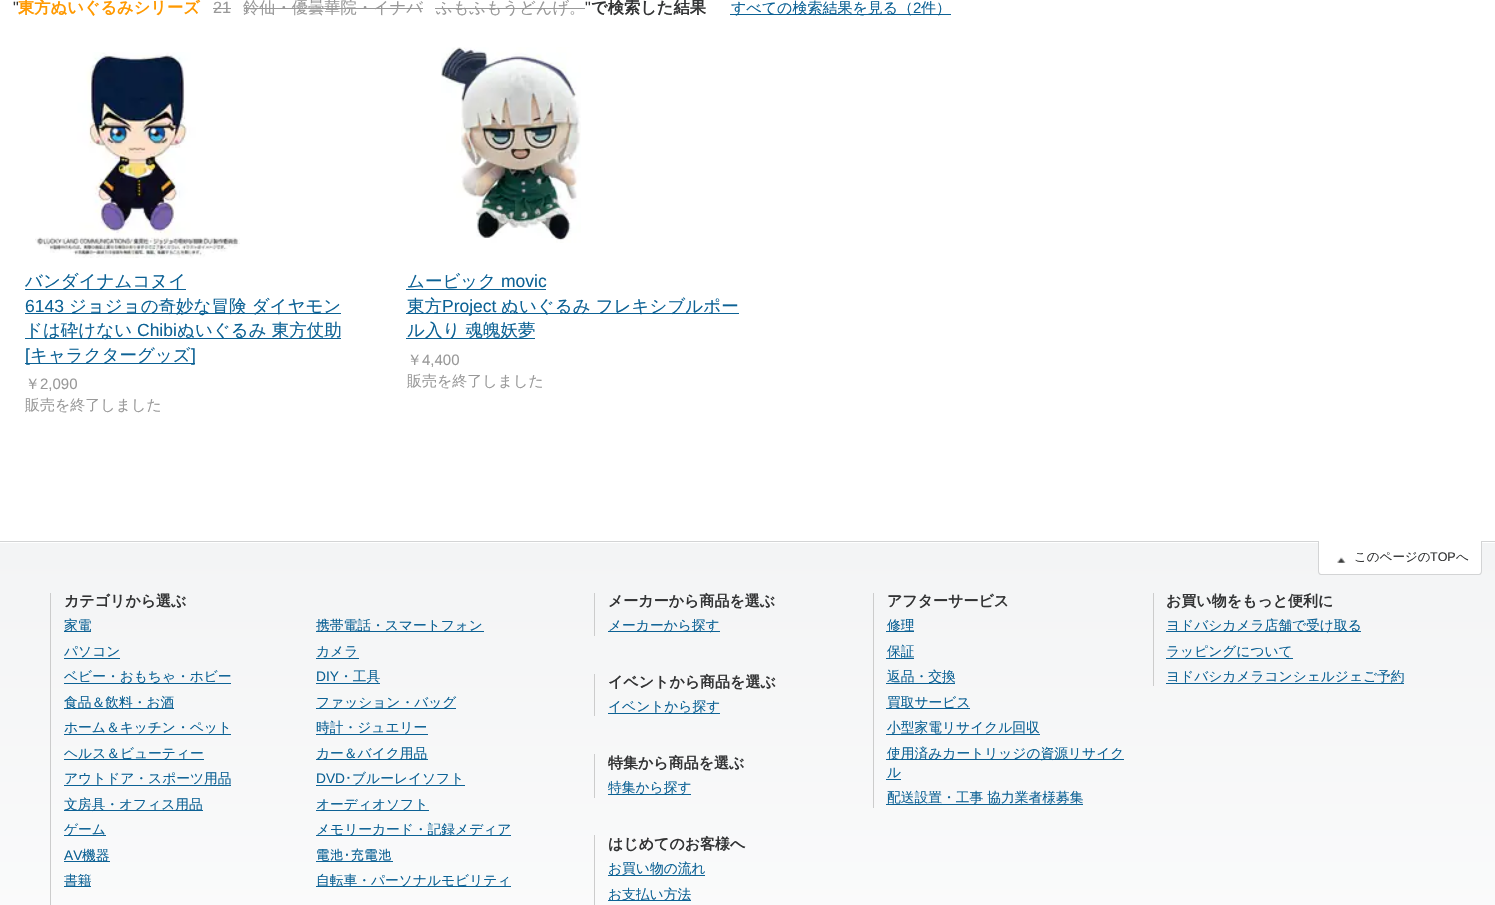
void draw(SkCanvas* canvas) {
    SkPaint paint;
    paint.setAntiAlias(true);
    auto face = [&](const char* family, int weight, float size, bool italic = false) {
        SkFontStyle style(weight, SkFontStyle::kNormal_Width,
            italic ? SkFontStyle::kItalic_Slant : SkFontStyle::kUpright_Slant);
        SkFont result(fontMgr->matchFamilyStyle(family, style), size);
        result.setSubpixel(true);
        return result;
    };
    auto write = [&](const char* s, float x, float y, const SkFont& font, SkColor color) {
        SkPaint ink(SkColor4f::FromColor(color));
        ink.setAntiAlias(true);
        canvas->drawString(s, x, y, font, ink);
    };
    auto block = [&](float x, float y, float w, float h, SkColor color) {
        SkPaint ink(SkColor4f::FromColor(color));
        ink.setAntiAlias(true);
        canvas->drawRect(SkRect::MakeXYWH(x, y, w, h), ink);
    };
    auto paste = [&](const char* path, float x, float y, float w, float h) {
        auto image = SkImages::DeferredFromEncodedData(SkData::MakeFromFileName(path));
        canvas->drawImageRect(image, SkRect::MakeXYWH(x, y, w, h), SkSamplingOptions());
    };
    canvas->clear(SK_ColorWHITE);
    auto kFont1 = face("Liberation Sans", 400, 16.25f);
    write("\"", 13, 13, kFont1, SkColorSetRGB(51, 52, 53));
    auto kFont2 = face("WenQuanYi Zen Hei", 700, 16.25f);
    write("東方ぬいぐるみシリーズ", 18, 13, kFont2, SkColorSetRGB(255, 153, 0));
    write("21", 213, 13, kFont1, SkColorSetRGB(153, 153, 153));
    block(213, 8, 18, 1, SkColorSetRGB(153, 153, 153));
    auto kFont3 = face("WenQuanYi Zen Hei", 500, 16.25f);
    write("鈴仙・優曇華院・イナバ", 243, 13, kFont3, SkColorSetRGB(153, 153, 153));
    block(244, 8, 179, 1, SkColorSetRGB(153, 153, 153));
    write("ふもふもうどんげ。", 436, 13, kFont3, SkColorSetRGB(153, 153, 153));
    block(435, 8, 150, 1, SkColorSetRGB(153, 153, 153));
    write("\"", 585, 13, kFont1, SkColorSetRGB(51, 52, 53));
    write("で検索した結果", 591, 13, kFont2, SkColorSetRGB(51, 52, 53));
    block(730, 14, 221, 1, SkColorSetRGB(13, 98, 149));
    auto kFont4 = face("WenQuanYi Zen Hei", 500, 15);
    write("すべての検索結果を見る（", 731, 13, kFont4, SkColorSetRGB(13, 98, 149));
    auto kFont5 = face("Liberation Sans", 400, 15);
    write("2", 913, 13, kFont5, SkColorSetRGB(13, 98, 149));
    write("件）", 921, 13, kFont4, SkColorSetRGB(13, 98, 149));
    paste("pic1.png", 35, 52, 205, 206);
    block(25, 289, 161, 1, SkColorSetRGB(13, 98, 149));
    auto kFont6 = face("WenQuanYi Zen Hei", 500, 17.5f);
    write("バンダイナムコヌイ", 25, 287, kFont6, SkColorSetRGB(13, 98, 149));
    auto kFont7 = face("Liberation Sans", 400, 17.5f);
    write("6143", 25, 312, kFont7, SkColorSetRGB(13, 98, 149));
    block(25, 313, 316, 1, SkColorSetRGB(13, 98, 149));
    write("ジョジョの奇妙な冒険 ダイヤモン", 69, 312, kFont6, SkColorSetRGB(13, 98, 149));
    block(25, 338, 316, 1, SkColorSetRGB(13, 98, 149));
    write("ドは砕けない", 25, 336, kFont6, SkColorSetRGB(13, 98, 149));
    write("Chibi", 137, 336, kFont7, SkColorSetRGB(13, 98, 149));
    write("ぬいぐるみ 東方仗助", 177, 336, kFont6, SkColorSetRGB(13, 98, 149));
    block(25, 363, 170, 1, SkColorSetRGB(13, 98, 149));
    write("[", 25, 361, kFont7, SkColorSetRGB(13, 98, 149));
    write("キャラクターグッズ", 30, 361, kFont6, SkColorSetRGB(13, 98, 149));
    write("]", 191, 361, kFont7, SkColorSetRGB(13, 98, 149));
    write("￥", 25, 389, kFont4, SkColorSetRGB(153, 153, 153));
    write("2,090", 40, 389, kFont5, SkColorSetRGB(153, 153, 153));
    write("販売を終了しました", 25, 410, kFont4, SkColorSetRGB(153, 153, 153));
    paste("pic2.png", 441, 47, 140, 196);
    block(406, 289, 140, 1, SkColorSetRGB(13, 98, 149));
    write("ムービック", 407, 287, kFont6, SkColorSetRGB(13, 98, 149));
    write("movic", 501, 287, kFont7, SkColorSetRGB(13, 98, 149));
    block(406, 313, 333, 1, SkColorSetRGB(13, 98, 149));
    write("東方", 407, 312, kFont6, SkColorSetRGB(13, 98, 149));
    write("Project", 442, 312, kFont7, SkColorSetRGB(13, 98, 149));
    write("ぬいぐるみ フレキシブルポー", 501, 312, kFont6, SkColorSetRGB(13, 98, 149));
    block(406, 338, 129, 1, SkColorSetRGB(13, 98, 149));
    write("ル入り 魂魄妖夢", 407, 336, kFont6, SkColorSetRGB(13, 98, 149));
    write("￥", 407, 365, kFont4, SkColorSetRGB(153, 153, 153));
    write("4,400", 422, 365, kFont5, SkColorSetRGB(153, 153, 153));
    write("販売を終了しました", 407, 386, kFont4, SkColorSetRGB(153, 153, 153));
    {
        const SkColor colors[] = {SkColorSetRGB(243, 244, 245), SK_ColorWHITE};
        const float stops[] = {0, 1};
        const SkPoint ends[] = {{748, 542}, {748, 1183}};
        paint.setShader(SkGradientShader::MakeLinear(ends, colors, stops, 2, SkTileMode::kClamp));
        paint.setAlpha(255);
    }
    canvas->drawRect(SkRect::MakeXYWH(0, 543, 1495, 362), paint);
    block(0, 541, 1495, 1, SkColorSetRGB(211, 212, 213));
    paint.setShader(nullptr);
    paint.setColor(SK_ColorWHITE);
    canvas->drawPath(SkPathBuilder().moveTo(1319, 541).lineTo(1481, 541).lineTo(1481, 571.5f).cubicTo(1481, 573, 1480, 574, 1478.5f, 574).lineTo(1321.5f, 574).cubicTo(1320, 574, 1319, 573, 1319, 571.5f).close().detach(), paint);
    paint.setColor(SkColorSetRGB(211, 212, 213));
    canvas->drawPath(SkPathBuilder(SkPathFillType::kEvenOdd).moveTo(1318, 541).lineTo(1482, 541).lineTo(1482, 571).cubicTo(1482, 573, 1481, 575, 1479, 575).lineTo(1321, 575).cubicTo(1319, 575, 1318, 573, 1318, 571).close().moveTo(1319, 541).lineTo(1481, 541).lineTo(1481, 571).cubicTo(1481, 573, 1480, 574, 1479, 574).lineTo(1321, 574).cubicTo(1320, 574, 1319, 573, 1319, 571).close().detach(), paint);
    paste("pic3.png", 1337, 557, 9, 6);
    auto kFont8 = face("WenQuanYi Zen Hei", 500, 12.5f);
    write("このページの", 1354, 561, kFont8, SkColorSetRGB(51, 52, 53));
    auto kFont9 = face("Liberation Sans", 400, 12.5f);
    write("TOP", 1430, 561, kFont9, SkColorSetRGB(51, 52, 53));
    write("へ", 1456, 561, kFont8, SkColorSetRGB(51, 52, 53));
    block(50, 593, 1, 312, SkColorSetRGB(204, 204, 204));
    auto kFont10 = face("WenQuanYi Zen Hei", 700, 15);
    write("カテゴリから選ぶ", 64, 606, kFont10, SkColorSetRGB(51, 52, 53));
    block(64, 631, 27, 1, SkColorSetRGB(13, 98, 149));
    auto kFont11 = face("WenQuanYi Zen Hei", 500, 13.75f);
    write("家電", 64, 630, kFont11, SkColorSetRGB(13, 98, 149));
    write("パソコン", 64, 656, kFont11, SkColorSetRGB(13, 98, 149));
    block(64, 658, 56, 1, SkColorSetRGB(13, 98, 149));
    block(64, 683, 167, 1, SkColorSetRGB(13, 98, 149));
    write("ベビー・おもちゃ・ホビー", 64, 681, kFont11, SkColorSetRGB(13, 98, 149));
    block(64, 708, 110, 1, SkColorSetRGB(13, 98, 149));
    write("食品＆飲料・お酒", 64, 707, kFont11, SkColorSetRGB(13, 98, 149));
    write("ホーム＆キッチン・ペット", 64, 732, kFont11, SkColorSetRGB(13, 98, 149));
    block(64, 734, 167, 1, SkColorSetRGB(13, 98, 149));
    block(64, 759, 140, 1, SkColorSetRGB(13, 98, 149));
    write("ヘルス＆ビューティー", 64, 758, kFont11, SkColorSetRGB(13, 98, 149));
    write("アウトドア・スポーツ用品", 64, 783, kFont11, SkColorSetRGB(13, 98, 149));
    block(64, 785, 167, 1, SkColorSetRGB(13, 98, 149));
    block(64, 810, 139, 1, SkColorSetRGB(13, 98, 149));
    write("文房具・オフィス用品", 64, 809, kFont11, SkColorSetRGB(13, 98, 149));
    block(64, 835, 42, 1, SkColorSetRGB(13, 98, 149));
    write("ゲーム", 64, 834, kFont11, SkColorSetRGB(13, 98, 149));
    auto kFont12 = face("Liberation Sans", 400, 13.75f);
    write("AV", 64, 860, kFont12, SkColorSetRGB(13, 98, 149));
    block(64, 861, 46, 1, SkColorSetRGB(13, 98, 149));
    write("機器", 82, 860, kFont11, SkColorSetRGB(13, 98, 149));
    block(64, 886, 27, 1, SkColorSetRGB(13, 98, 149));
    write("書籍", 64, 885, kFont11, SkColorSetRGB(13, 98, 149));
    block(316, 631, 168, 1, SkColorSetRGB(13, 98, 149));
    write("携帯電話・スマートフォン", 316, 630, kFont11, SkColorSetRGB(13, 98, 149));
    write("カメラ", 316, 656, kFont11, SkColorSetRGB(13, 98, 149));
    block(316, 658, 43, 1, SkColorSetRGB(13, 98, 149));
    write("DIY", 316, 681, kFont12, SkColorSetRGB(13, 98, 149));
    block(316, 683, 64, 1, SkColorSetRGB(13, 98, 149));
    write("・工具", 339, 681, kFont11, SkColorSetRGB(13, 98, 149));
    block(316, 708, 140, 1, SkColorSetRGB(13, 98, 149));
    write("ファッション・バッグ", 316, 707, kFont11, SkColorSetRGB(13, 98, 149));
    write("時計・ジュエリー", 316, 732, kFont11, SkColorSetRGB(13, 98, 149));
    block(316, 734, 112, 1, SkColorSetRGB(13, 98, 149));
    block(316, 759, 112, 1, SkColorSetRGB(13, 98, 149));
    write("カー＆バイク用品", 316, 758, kFont11, SkColorSetRGB(13, 98, 149));
    write("DVD", 316, 783, kFont12, SkColorSetRGB(13, 98, 149));
    block(316, 785, 149, 1, SkColorSetRGB(13, 98, 149));
    auto kFont13 = face("IPAPGothic", 400, 13.75f);
    write("･", 345, 783, kFont13, SkColorSetRGB(13, 98, 149));
    write("ブルーレイソフト", 352, 783, kFont11, SkColorSetRGB(13, 98, 149));
    block(316, 810, 113, 1, SkColorSetRGB(13, 98, 149));
    write("オーディオソフト", 316, 809, kFont11, SkColorSetRGB(13, 98, 149));
    block(316, 835, 195, 1, SkColorSetRGB(13, 98, 149));
    write("メモリーカード・記録メディア", 316, 834, kFont11, SkColorSetRGB(13, 98, 149));
    write("電池･充電池", 316, 860, kFont13, SkColorSetRGB(13, 98, 149));
    block(316, 861, 77, 1, SkColorSetRGB(13, 98, 149));
    block(316, 886, 195, 1, SkColorSetRGB(13, 98, 149));
    write("自転車・パーソナルモビリティ", 316, 885, kFont11, SkColorSetRGB(13, 98, 149));
    block(594, 593, 1, 43, SkColorSetRGB(204, 204, 204));
    write("メーカーから商品を選ぶ", 608, 606, kFont10, SkColorSetRGB(51, 52, 53));
    block(608, 631, 112, 1, SkColorSetRGB(13, 98, 149));
    write("メーカーから探す", 608, 630, kFont11, SkColorSetRGB(13, 98, 149));
    block(594, 674, 1, 42, SkColorSetRGB(204, 204, 204));
    write("イベントから商品を選ぶ", 608, 687, kFont10, SkColorSetRGB(51, 52, 53));
    block(608, 713, 112, 1, SkColorSetRGB(13, 98, 149));
    write("イベントから探す", 608, 711, kFont11, SkColorSetRGB(13, 98, 149));
    block(594, 754, 1, 44, SkColorSetRGB(204, 204, 204));
    write("特集から商品を選ぶ", 608, 768, kFont10, SkColorSetRGB(51, 52, 53));
    block(608, 794, 83, 1, SkColorSetRGB(13, 98, 149));
    write("特集から探す", 608, 792, kFont11, SkColorSetRGB(13, 98, 149));
    block(594, 835, 1, 70, SkColorSetRGB(204, 204, 204));
    write("はじめてのお客様へ", 608, 849, kFont10, SkColorSetRGB(51, 52, 53));
    block(608, 875, 97, 1, SkColorSetRGB(13, 98, 149));
    write("お買い物の流れ", 608, 873, kFont11, SkColorSetRGB(13, 98, 149));
    block(608, 900, 83, 1, SkColorSetRGB(13, 98, 149));
    write("お支払い方法", 608, 899, kFont11, SkColorSetRGB(13, 98, 149));
    block(873, 593, 1, 215, SkColorSetRGB(204, 204, 204));
    write("アフターサービス", 887, 606, kFont10, SkColorSetRGB(51, 52, 53));
    block(886, 631, 28, 1, SkColorSetRGB(13, 98, 149));
    write("修理", 887, 630, kFont11, SkColorSetRGB(13, 98, 149));
    write("保証", 887, 656, kFont11, SkColorSetRGB(13, 98, 149));
    block(886, 658, 28, 1, SkColorSetRGB(13, 98, 149));
    block(886, 683, 69, 1, SkColorSetRGB(13, 98, 149));
    write("返品・交換", 887, 681, kFont11, SkColorSetRGB(13, 98, 149));
    block(886, 708, 84, 1, SkColorSetRGB(13, 98, 149));
    write("買取サービス", 887, 707, kFont11, SkColorSetRGB(13, 98, 149));
    write("小型家電リサイクル回収", 887, 732, kFont11, SkColorSetRGB(13, 98, 149));
    block(886, 734, 154, 1, SkColorSetRGB(13, 98, 149));
    block(886, 759, 238, 1, SkColorSetRGB(13, 98, 149));
    write("使用済みカートリッジの資源リサイク", 887, 758, kFont11, SkColorSetRGB(13, 98, 149));
    write("ル", 887, 777, kFont11, SkColorSetRGB(13, 98, 149));
    block(886, 779, 15, 1, SkColorSetRGB(13, 98, 149));
    write("配送設置・工事 協力業者様募集", 887, 802, kFont11, SkColorSetRGB(13, 98, 149));
    block(886, 804, 197, 1, SkColorSetRGB(13, 98, 149));
    block(1153, 593, 1, 93, SkColorSetRGB(204, 204, 204));
    write("お買い物をもっと便利に", 1166, 606, kFont10, SkColorSetRGB(51, 52, 53));
    block(1166, 631, 195, 1, SkColorSetRGB(13, 98, 149));
    write("ヨドバシカメラ店舗で受け取る", 1166, 630, kFont11, SkColorSetRGB(13, 98, 149));
    write("ラッピングについて", 1166, 656, kFont11, SkColorSetRGB(13, 98, 149));
    block(1166, 658, 127, 1, SkColorSetRGB(13, 98, 149));
    write("ヨドバシカメラコンシェルジェご予約", 1166, 681, kFont11, SkColorSetRGB(13, 98, 149));
    block(1166, 683, 238, 1, SkColorSetRGB(13, 98, 149));
}
